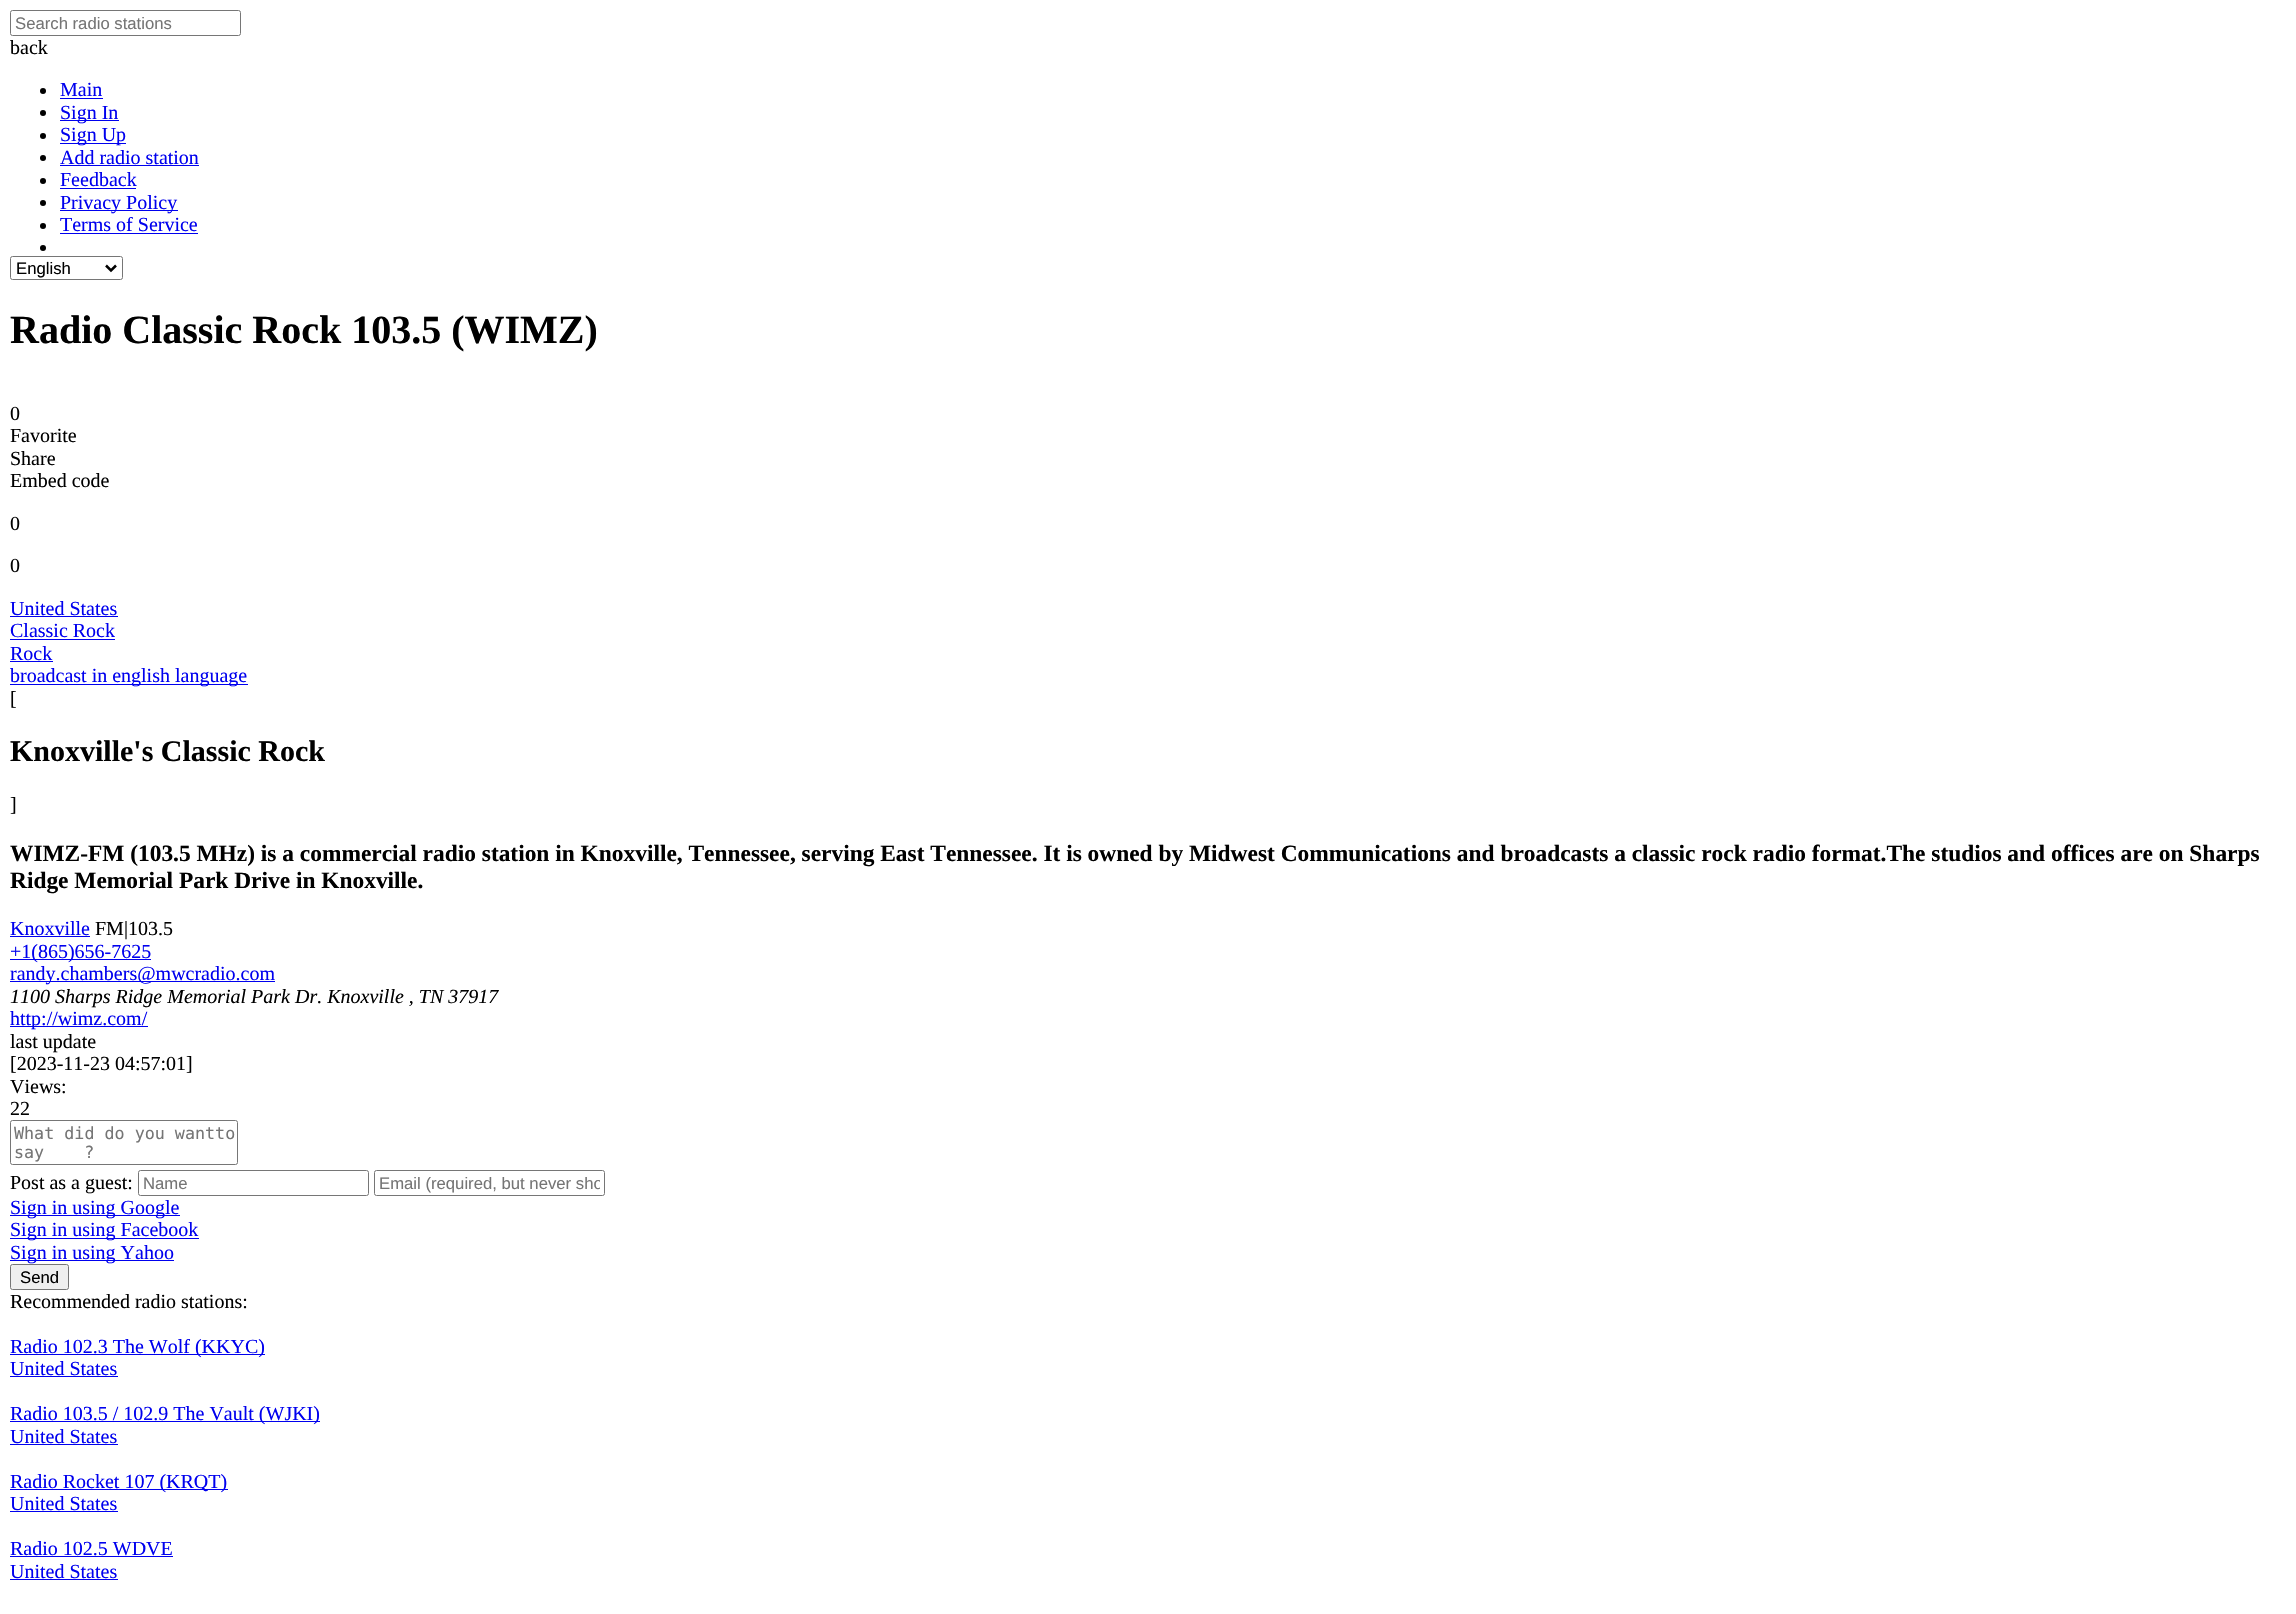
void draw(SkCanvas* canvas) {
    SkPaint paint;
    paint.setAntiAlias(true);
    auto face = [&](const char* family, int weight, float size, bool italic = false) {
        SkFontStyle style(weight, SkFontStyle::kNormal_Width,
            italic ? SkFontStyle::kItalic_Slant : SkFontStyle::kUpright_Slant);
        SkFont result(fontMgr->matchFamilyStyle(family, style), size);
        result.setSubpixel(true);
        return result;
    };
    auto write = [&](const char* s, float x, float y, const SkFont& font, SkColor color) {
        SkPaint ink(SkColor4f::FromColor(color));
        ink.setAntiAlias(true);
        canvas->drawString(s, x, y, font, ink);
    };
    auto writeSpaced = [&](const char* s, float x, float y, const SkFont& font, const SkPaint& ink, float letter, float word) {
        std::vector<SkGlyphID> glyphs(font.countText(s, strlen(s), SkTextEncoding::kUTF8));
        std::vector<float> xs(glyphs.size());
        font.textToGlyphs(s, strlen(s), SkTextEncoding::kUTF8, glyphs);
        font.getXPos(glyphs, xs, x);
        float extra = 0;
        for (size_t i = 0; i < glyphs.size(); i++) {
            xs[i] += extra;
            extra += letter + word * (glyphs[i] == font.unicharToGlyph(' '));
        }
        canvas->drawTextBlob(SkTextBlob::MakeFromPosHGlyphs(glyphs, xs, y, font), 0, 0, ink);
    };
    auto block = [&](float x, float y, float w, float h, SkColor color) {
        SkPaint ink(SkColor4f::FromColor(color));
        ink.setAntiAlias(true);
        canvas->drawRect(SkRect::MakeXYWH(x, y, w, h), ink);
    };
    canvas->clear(SK_ColorWHITE);
    paint.setStyle(SkPaint::kStroke_Style);
    paint.setStrokeWidth(1);
    paint.setColor(SkColorSetRGB(118, 118, 118));
    canvas->drawRoundRect(SkRect::MakeXYWH(10.5f, 10.5f, 230, 25), 2, 2, paint);
    auto kFont1 = face("Liberation Sans", 400, 16.7f);
    write("Search radio stations", 15, 29, kFont1, SkColorSetRGB(117, 117, 117));
    auto kFont2 = face("Liberation Serif", 400, 20);
    write("back", 10, 54, kFont2, SK_ColorBLACK);
    paint.setStyle(SkPaint::kFill_Style);
    paint.setColor(SK_ColorBLACK);
    canvas->drawCircle(43, 91, 3, paint);
    write("Main", 60, 96, kFont2, SkColorSetRGB(0, 0, 238));
    block(60, 98, 43, 1, SkColorSetRGB(0, 0, 238));
    canvas->drawCircle(43, 113, 3, paint);
    block(60, 120, 59, 1, SkColorSetRGB(0, 0, 238));
    write("Sign In", 60, 119, kFont2, SkColorSetRGB(0, 0, 238));
    canvas->drawCircle(43, 136, 3, paint);
    block(60, 143, 66, 1, SkColorSetRGB(0, 0, 238));
    write("Sign Up", 60, 141, kFont2, SkColorSetRGB(0, 0, 238));
    canvas->drawCircle(43, 158, 3, paint);
    write("Add radio station", 60, 164, kFont2, SkColorSetRGB(0, 0, 238));
    block(60, 165, 139, 1, SkColorSetRGB(0, 0, 238));
    canvas->drawCircle(43, 181, 3, paint);
    write("Feedback", 60, 186, kFont2, SkColorSetRGB(0, 0, 238));
    block(60, 188, 76, 1, SkColorSetRGB(0, 0, 238));
    canvas->drawCircle(43, 203, 3, paint);
    block(60, 210, 118, 1, SkColorSetRGB(0, 0, 238));
    write("Privacy Policy", 60, 209, kFont2, SkColorSetRGB(0, 0, 238));
    canvas->drawCircle(43, 226, 3, paint);
    write("Terms of Service", 60, 231, kFont2, SkColorSetRGB(0, 0, 238));
    block(60, 233, 138, 1, SkColorSetRGB(0, 0, 238));
    canvas->drawCircle(43, 248, 3, paint);
    paint.setStyle(SkPaint::kStroke_Style);
    paint.setColor(SkColorSetRGB(118, 118, 118));
    canvas->drawRoundRect(SkRect::MakeXYWH(10.5f, 256.5f, 112, 23), 2, 2, paint);
    paint.setStrokeWidth(2.5f);
    paint.setColor(SK_ColorBLACK);
    canvas->drawPath(SkPathBuilder().moveTo(106, 265.5f).lineTo(111, 270.5f).lineTo(116, 265.5f).detach(), paint);
    write("English", 16, 274, kFont1, SK_ColorBLACK);
    auto kFont3 = face("Liberation Serif", 700, 40);
    write("Radio Classic Rock 103.5 (WIMZ)", 10, 343, kFont3, SK_ColorBLACK);
    write("0", 10, 420, kFont2, SK_ColorBLACK);
    write("Favorite", 10, 442, kFont2, SK_ColorBLACK);
    write("Share", 10, 465, kFont2, SK_ColorBLACK);
    write("Embed code", 10, 487, kFont2, SK_ColorBLACK);
    write("0", 10, 530, kFont2, SK_ColorBLACK);
    write("0", 10, 572, kFont2, SK_ColorBLACK);
    write("United States", 10, 615, kFont2, SkColorSetRGB(0, 0, 238));
    block(10, 616, 108, 1, SkColorSetRGB(0, 0, 238));
    write("Classic Rock", 10, 637, kFont2, SkColorSetRGB(0, 0, 238));
    block(10, 639, 105, 1, SkColorSetRGB(0, 0, 238));
    write("Rock", 10, 660, kFont2, SkColorSetRGB(0, 0, 238));
    block(10, 661, 43, 1, SkColorSetRGB(0, 0, 238));
    block(10, 684, 238, 1, SkColorSetRGB(0, 0, 238));
    write("broadcast in english language", 10, 682, kFont2, SkColorSetRGB(0, 0, 238));
    write("[", 10, 705, kFont2, SK_ColorBLACK);
    auto kFont4 = face("Liberation Serif", 700, 30);
    write("Knoxville's Classic Rock", 10, 761, kFont4, SK_ColorBLACK);
    write("]", 10, 811, kFont2, SK_ColorBLACK);
    auto kFont5 = face("Liberation Serif", 700, 23.4f);
    write("WIMZ-FM (103.5 MHz) is a commercial radio station in Knoxville, Tennessee, serving East Tennessee. It is owned by Midwest Communications and broadcasts a classic rock radio format.The studios and offices are on Sharps", 10, 861, kFont5, SK_ColorBLACK);
    write("Ridge Memorial Park Drive in Knoxville.", 10, 888, kFont5, SK_ColorBLACK);
    write("Knoxville", 10, 935, kFont2, SkColorSetRGB(0, 0, 238));
    block(10, 936, 80, 1, SkColorSetRGB(0, 0, 238));
    write("FM|103.5", 95, 935, kFont2, SK_ColorBLACK);
    block(10, 959, 141, 1, SkColorSetRGB(0, 0, 238));
    write("+1(865)656-7625", 10, 958, kFont2, SkColorSetRGB(0, 0, 238));
    block(10, 981, 265, 1, SkColorSetRGB(0, 0, 238));
    write("randy.chambers@mwcradio.com", 10, 980, kFont2, SkColorSetRGB(0, 0, 238));
    auto kFont6 = face("Liberation Serif", 400, 20, true);
    write("1100 Sharps Ridge Memorial Park Dr. Knoxville , TN 37917", 10, 1003, kFont6, SK_ColorBLACK);
    block(10, 1026, 138, 1, SkColorSetRGB(0, 0, 238));
    write("http://wimz.com/", 10, 1025, kFont2, SkColorSetRGB(0, 0, 238));
    write("last update", 10, 1048, kFont2, SK_ColorBLACK);
    write("[2023-11-23 04:57:01]", 10, 1070, kFont2, SK_ColorBLACK);
    write("Views:", 10, 1093, kFont2, SK_ColorBLACK);
    write("22", 10, 1115, kFont2, SK_ColorBLACK);
    paint.setStrokeWidth(1);
    paint.setColor(SkColorSetRGB(118, 118, 118));
    canvas->drawRoundRect(SkRect::MakeXYWH(10.5f, 1120.5f, 227, 44), 2, 2, paint);
    auto kFont7 = face("DejaVu Sans Mono", 400, 16.7f);
    write("What did do you wantto", 14, 1139, kFont7, SkColorSetRGB(117, 117, 117));
    paint.setStyle(SkPaint::kFill_Style);
    paint.setColor(SkColorSetRGB(117, 117, 117));
    writeSpaced("say ?", 14, 1158, kFont7, paint, 0, 30);
    write("Post as a guest:", 10, 1189, kFont2, SK_ColorBLACK);
    paint.setStyle(SkPaint::kStroke_Style);
    paint.setColor(SkColorSetRGB(118, 118, 118));
    canvas->drawRoundRect(SkRect::MakeXYWH(138.5f, 1170.5f, 230, 25), 2, 2, paint);
    write("Name", 143, 1189, kFont1, SkColorSetRGB(117, 117, 117));
    canvas->drawRoundRect(SkRect::MakeXYWH(374.5f, 1170.5f, 230, 25), 2, 2, paint);
    canvas->save();
    canvas->clipRect(SkRect::MakeXYWH(379, 1174, 221, 19));
    write("Email (required, but never sho", 379, 1189, kFont1, SkColorSetRGB(117, 117, 117));
    canvas->restore();
    block(10, 1215, 170, 1, SkColorSetRGB(0, 0, 238));
    write("Sign in using Google", 10, 1214, kFont2, SkColorSetRGB(0, 0, 238));
    block(10, 1238, 189, 1, SkColorSetRGB(0, 0, 238));
    write("Sign in using Facebook", 10, 1236, kFont2, SkColorSetRGB(0, 0, 238));
    block(10, 1260, 164, 1, SkColorSetRGB(0, 0, 238));
    write("Sign in using Yahoo", 10, 1259, kFont2, SkColorSetRGB(0, 0, 238));
    paint.setStyle(SkPaint::kFill_Style);
    paint.setColor(SkColorSetRGB(239, 239, 239));
    canvas->drawRoundRect(SkRect::MakeXYWH(10.5f, 1264.5f, 58, 25), 2, 2, paint);
    paint.setStyle(SkPaint::kStroke_Style);
    paint.setColor(SkColorSetRGB(118, 118, 118));
    canvas->drawRoundRect(SkRect::MakeXYWH(10.5f, 1264.5f, 58, 25), 2, 2, paint);
    write("Send", 20, 1283, kFont1, SK_ColorBLACK);
    write("Recommended radio stations:", 10, 1308, kFont2, SK_ColorBLACK);
    block(10, 1354, 255, 1, SkColorSetRGB(0, 0, 238));
    write("Radio 102.3 The Wolf (KKYC)", 10, 1353, kFont2, SkColorSetRGB(0, 0, 238));
    write("United States", 10, 1375, kFont2, SkColorSetRGB(0, 0, 238));
    block(10, 1376, 108, 1, SkColorSetRGB(0, 0, 238));
    block(10, 1421, 310, 1, SkColorSetRGB(0, 0, 238));
    write("Radio 103.5 / 102.9 The Vault (WJKI)", 10, 1420, kFont2, SkColorSetRGB(0, 0, 238));
    write("United States", 10, 1443, kFont2, SkColorSetRGB(0, 0, 238));
    block(10, 1444, 108, 1, SkColorSetRGB(0, 0, 238));
    block(10, 1489, 218, 1, SkColorSetRGB(0, 0, 238));
    write("Radio Rocket 107 (KRQT)", 10, 1488, kFont2, SkColorSetRGB(0, 0, 238));
    write("United States", 10, 1510, kFont2, SkColorSetRGB(0, 0, 238));
    block(10, 1511, 108, 1, SkColorSetRGB(0, 0, 238));
    write("Radio 102.5 WDVE", 10, 1555, kFont2, SkColorSetRGB(0, 0, 238));
    block(10, 1556, 163, 1, SkColorSetRGB(0, 0, 238));
    write("United States", 10, 1578, kFont2, SkColorSetRGB(0, 0, 238));
    block(10, 1579, 108, 1, SkColorSetRGB(0, 0, 238));
}
